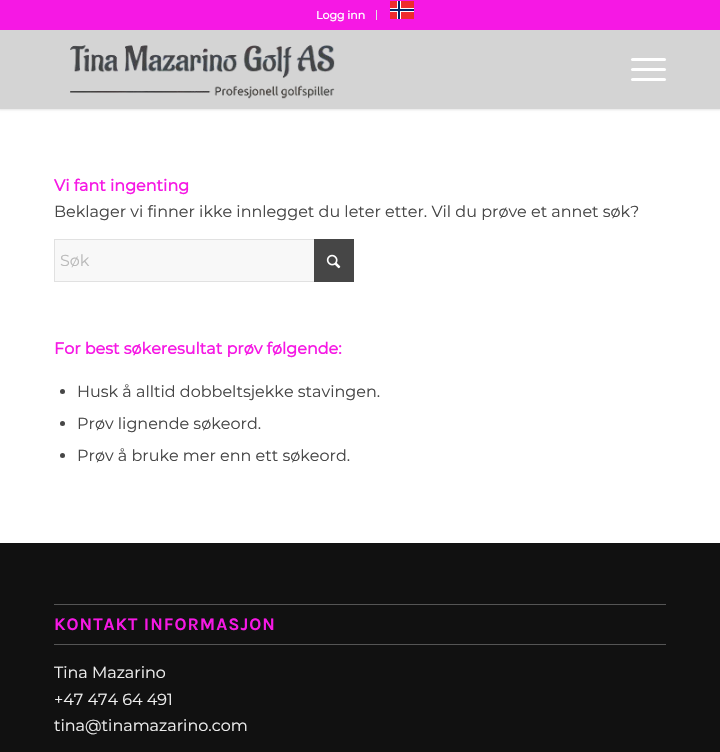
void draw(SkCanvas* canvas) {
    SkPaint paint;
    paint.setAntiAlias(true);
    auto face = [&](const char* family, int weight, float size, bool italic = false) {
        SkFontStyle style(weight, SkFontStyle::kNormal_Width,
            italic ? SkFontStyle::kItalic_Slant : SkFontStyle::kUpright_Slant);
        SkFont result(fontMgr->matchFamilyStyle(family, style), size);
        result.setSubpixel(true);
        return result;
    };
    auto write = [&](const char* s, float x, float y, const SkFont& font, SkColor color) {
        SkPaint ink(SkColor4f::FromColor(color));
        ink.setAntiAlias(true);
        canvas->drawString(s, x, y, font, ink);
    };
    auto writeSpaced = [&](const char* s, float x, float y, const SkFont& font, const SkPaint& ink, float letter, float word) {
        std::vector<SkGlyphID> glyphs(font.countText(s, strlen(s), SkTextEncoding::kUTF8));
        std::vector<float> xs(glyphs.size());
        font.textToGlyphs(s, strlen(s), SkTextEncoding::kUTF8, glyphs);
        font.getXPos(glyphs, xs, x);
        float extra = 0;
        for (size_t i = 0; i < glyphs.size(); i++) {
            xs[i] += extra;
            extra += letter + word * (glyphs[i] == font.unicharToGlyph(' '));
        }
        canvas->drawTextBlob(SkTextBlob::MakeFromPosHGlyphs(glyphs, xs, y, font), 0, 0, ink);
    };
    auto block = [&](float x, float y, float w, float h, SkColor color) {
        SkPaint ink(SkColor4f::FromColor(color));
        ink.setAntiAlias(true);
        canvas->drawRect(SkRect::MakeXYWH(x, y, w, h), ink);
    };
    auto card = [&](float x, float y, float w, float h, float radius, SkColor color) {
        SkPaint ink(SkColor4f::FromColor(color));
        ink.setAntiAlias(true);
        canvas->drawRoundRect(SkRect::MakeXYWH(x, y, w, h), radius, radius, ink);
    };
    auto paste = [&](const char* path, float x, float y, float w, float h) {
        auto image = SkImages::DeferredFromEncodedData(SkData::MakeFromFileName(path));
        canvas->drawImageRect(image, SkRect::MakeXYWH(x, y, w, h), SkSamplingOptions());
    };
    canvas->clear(SK_ColorWHITE);
    paint.setColor(SkColorSetARGB(26, 0, 0, 0));
    paint.setMaskFilter(SkMaskFilter::MakeBlur(kNormal_SkBlurStyle, 1));
    canvas->drawRect(SkRect::MakeXYWH(-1, -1, 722, 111), paint);
    paint.setMaskFilter(nullptr);
    block(0, 0, 720, 30, SkColorSetRGB(246, 24, 228));
    block(376, 10, 1, 10, SkColorSetRGB(225, 225, 225));
    auto kFont1 = face("Montserrat", 700, 11);
    write("Logg inn", 316, 19, kFont1, SK_ColorWHITE);
    block(390, 1, 24, 18, SkColorSetRGB(239, 43, 45));
    block(397, 1, 4, 18, SK_ColorWHITE);
    block(390, 8, 24, 4, SK_ColorWHITE);
    block(398, 1, 2, 18, SkColorSetRGB(0, 40, 104));
    block(390, 9, 24, 2, SkColorSetRGB(0, 40, 104));
    block(0, 30, 720, 79, SkColorSetRGB(212, 212, 212));
    paste("pic1.png", 70, 45, 265, 54);
    card(631, 68, 35, 3, 1.5f, SK_ColorWHITE);
    card(631, 58, 35, 3, 1.5f, SK_ColorWHITE);
    card(631, 78, 35, 3, 1.5f, SK_ColorWHITE);
    auto kFont2 = face("Montserrat", 700, 16);
    write("Vi fant ingenting", 54, 191, kFont2, SkColorSetRGB(246, 24, 228));
    auto kFont3 = face("Montserrat", 100, 16);
    write("Beklager vi finner ikke innlegget du leter etter. Vil du prøve et annet søk?", 54, 217, kFont3, SkColorSetRGB(70, 70, 70));
    block(55, 240, 259, 41, SkColorSetRGB(248, 248, 248));
    paint.setStyle(SkPaint::kStroke_Style);
    paint.setStrokeWidth(1);
    paint.setColor(SkColorSetRGB(225, 225, 225));
    canvas->drawRect(SkRect::MakeXYWH(54.5f, 239.5f, 299, 42), paint);
    write("Søk", 60, 266, kFont3, SkColorSetRGB(187, 187, 187));
    block(314, 239, 40, 43, SkColorSetRGB(70, 70, 70));
    paste("pic2.png", 326, 254, 15, 15);
    write("For best søkeresultat prøv følgende:", 54, 354, kFont2, SkColorSetRGB(246, 24, 228));
    paint.setStyle(SkPaint::kFill_Style);
    paint.setColor(SkColorSetRGB(70, 70, 70));
    canvas->drawCircle(62.5f, 391.5f, 2.5f, paint);
    write("Husk å alltid dobbeltsjekke stavingen.", 77, 397, kFont3, SkColorSetRGB(70, 70, 70));
    canvas->drawCircle(62.5f, 423.5f, 2.5f, paint);
    write("Prøv lignende søkeord.", 77, 429, kFont3, SkColorSetRGB(70, 70, 70));
    canvas->drawCircle(62.5f, 455.5f, 2.5f, paint);
    write("Prøv å bruke mer enn ett søkeord.", 77, 461, kFont3, SkColorSetRGB(70, 70, 70));
    block(0, 543, 720, 209, SkColorSetRGB(17, 17, 17));
    block(54, 604, 612, 1, SkColorSetRGB(85, 85, 85));
    block(54, 644, 612, 1, SkColorSetRGB(85, 85, 85));
    auto kFont4 = face("Karla", 700, 17.6f);
    paint.setColor(SkColorSetRGB(246, 24, 228));
    writeSpaced("KONTAKT INFORMASJON", 54, 630, kFont4, paint, 1, 0);
    write("Tina Mazarino", 54, 678, kFont3, SkColorSetRGB(238, 238, 238));
    write("+47 474 64 491", 54, 705, kFont3, SkColorSetRGB(238, 238, 238));
    write("tina@tinamazarino.com", 54, 731, kFont3, SkColorSetRGB(238, 238, 238));
}
